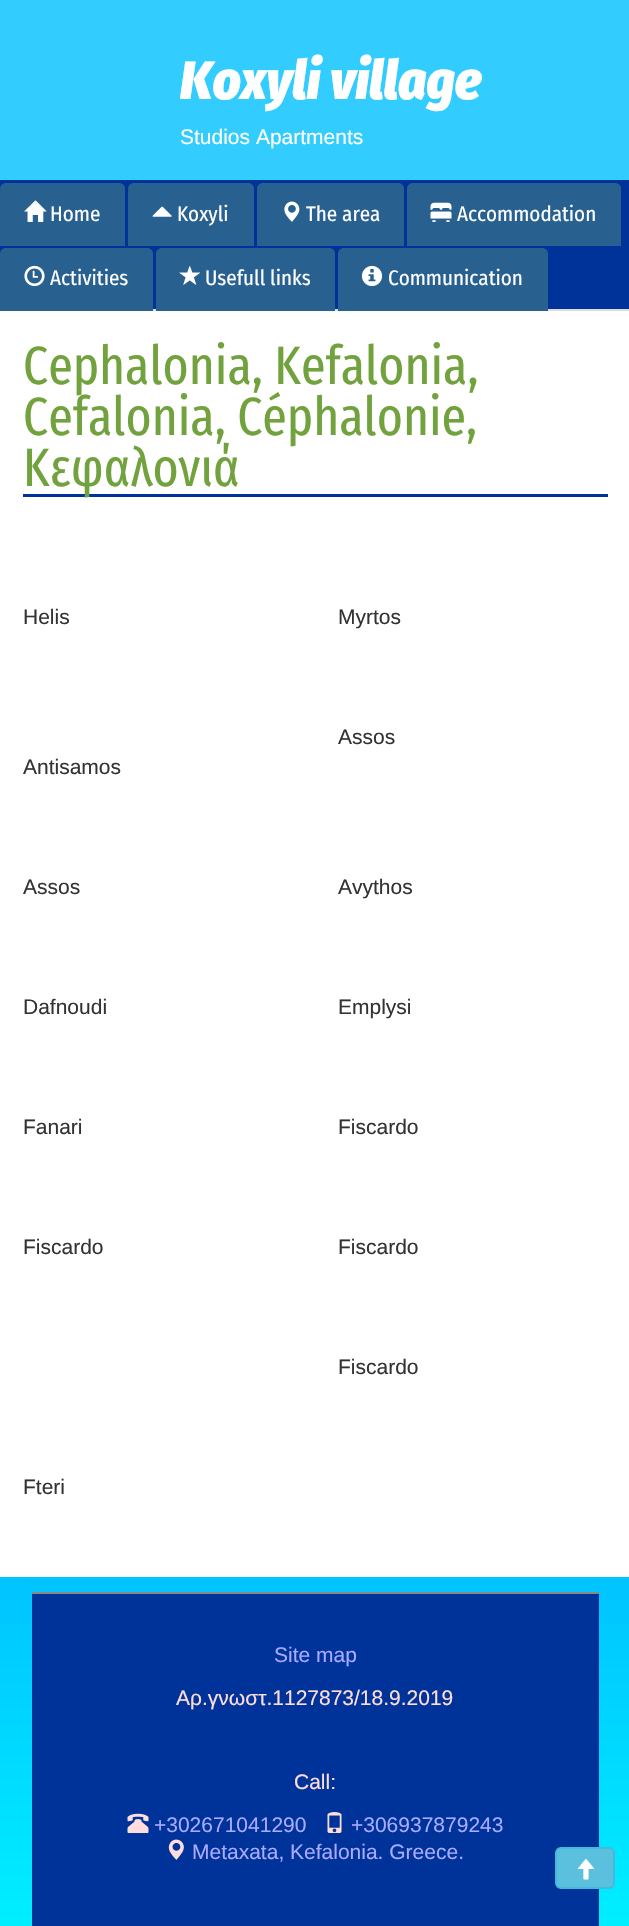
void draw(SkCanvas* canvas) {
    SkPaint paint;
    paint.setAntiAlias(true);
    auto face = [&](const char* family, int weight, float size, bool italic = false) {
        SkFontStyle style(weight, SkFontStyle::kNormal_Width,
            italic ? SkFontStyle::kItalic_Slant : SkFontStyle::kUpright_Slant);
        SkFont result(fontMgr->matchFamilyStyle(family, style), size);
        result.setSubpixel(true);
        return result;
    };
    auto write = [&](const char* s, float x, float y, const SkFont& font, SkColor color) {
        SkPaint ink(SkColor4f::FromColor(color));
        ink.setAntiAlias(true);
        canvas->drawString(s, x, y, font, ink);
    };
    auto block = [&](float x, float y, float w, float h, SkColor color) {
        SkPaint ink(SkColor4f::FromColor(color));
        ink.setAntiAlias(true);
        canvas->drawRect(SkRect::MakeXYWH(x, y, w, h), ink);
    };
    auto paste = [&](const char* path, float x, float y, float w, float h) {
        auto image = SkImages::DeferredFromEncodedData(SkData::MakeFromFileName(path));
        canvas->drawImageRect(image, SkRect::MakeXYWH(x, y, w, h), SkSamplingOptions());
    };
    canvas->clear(SK_ColorWHITE);
    {
        const SkColor colors[] = {SkColorSetRGB(0, 0, 255), SkColorSetRGB(0, 255, 255)};
        const float stops[] = {0, 1};
        const SkPoint ends[] = {{315, 0}, {315, 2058}};
        paint.setShader(SkGradientShader::MakeLinear(ends, colors, stops, 2, SkTileMode::kClamp));
        paint.setAlpha(255);
    }
    canvas->drawRect(SkRect::MakeXYWH(0, 1577, 629, 349), paint);
    block(0, 0, 629, 180, SkColorSetRGB(51, 204, 255));
    auto kFont1 = face("Fira Sans Condensed", 900, 54, true);
    write("Koxyli village", 180, 99, kFont1, SK_ColorWHITE);
    auto kFont2 = face("Liberation Sans", 400, 21);
    write("Studios Apartments", 180, 144, kFont2, SK_ColorWHITE);
    block(0, 180, 629, 129, SkColorSetRGB(0, 51, 153));
    block(153, 309, 476, 2, SkColorSetRGB(221, 221, 221));
    paint.setShader(nullptr);
    paint.setColor(SkColorSetRGB(40, 96, 144));
    canvas->drawPath(SkPathBuilder().moveTo(6, 183).lineTo(119, 183).cubicTo(122.5f, 183, 125, 185.5f, 125, 189).lineTo(125, 246).lineTo(0, 246).lineTo(0, 189).cubicTo(0, 185.5f, 2.5f, 183, 6, 183).close().detach(), paint);
    paste("pic1.png", 24, 200, 23, 22);
    auto kFont3 = face("Fira Sans Condensed", 400, 21);
    write("Home", 50, 221, kFont3, SK_ColorWHITE);
    canvas->drawPath(SkPathBuilder().moveTo(134, 183).lineTo(248, 183).cubicTo(251.5f, 183, 254, 185.5f, 254, 189).lineTo(254, 246).lineTo(128, 246).lineTo(128, 189).cubicTo(128, 185.5f, 130.5f, 183, 134, 183).close().detach(), paint);
    paste("pic2.png", 152, 206, 20, 11);
    write("Koxyli", 177, 221, kFont3, SK_ColorWHITE);
    canvas->drawPath(SkPathBuilder().moveTo(263, 183).lineTo(398, 183).cubicTo(401.5f, 183, 404, 185.5f, 404, 189).lineTo(404, 246).lineTo(257, 246).lineTo(257, 189).cubicTo(257, 185.5f, 259.5f, 183, 263, 183).close().detach(), paint);
    paste("pic3.png", 284, 201, 16, 21);
    write("The area", 306, 221, kFont3, SK_ColorWHITE);
    canvas->drawPath(SkPathBuilder().moveTo(413, 183).lineTo(615, 183).cubicTo(618.5f, 183, 621, 185.5f, 621, 189).lineTo(621, 246).lineTo(407, 246).lineTo(407, 189).cubicTo(407, 185.5f, 409.5f, 183, 413, 183).close().detach(), paint);
    paste("pic4.png", 430, 202, 22, 20);
    write("Accommodation", 457, 221, kFont3, SK_ColorWHITE);
    canvas->drawPath(SkPathBuilder().moveTo(6, 248).lineTo(147, 248).cubicTo(150.5f, 248, 153, 250.5f, 153, 254).lineTo(153, 311).lineTo(0, 311).lineTo(0, 254).cubicTo(0, 250.5f, 2.5f, 248, 6, 248).close().detach(), paint);
    paste("pic5.png", 24, 265, 21, 22);
    write("Activities", 50, 285, kFont3, SK_ColorWHITE);
    canvas->drawPath(SkPathBuilder().moveTo(162, 248).lineTo(329, 248).cubicTo(332.5f, 248, 335, 250.5f, 335, 254).lineTo(335, 311).lineTo(156, 311).lineTo(156, 254).cubicTo(156, 250.5f, 158.5f, 248, 162, 248).close().detach(), paint);
    paste("pic6.png", 179, 266, 21, 19);
    write("Usefull links", 205, 285, kFont3, SK_ColorWHITE);
    canvas->drawPath(SkPathBuilder().moveTo(344, 248).lineTo(542, 248).cubicTo(545.5f, 248, 548, 250.5f, 548, 254).lineTo(548, 311).lineTo(338, 311).lineTo(338, 254).cubicTo(338, 250.5f, 340.5f, 248, 344, 248).close().detach(), paint);
    paste("pic7.png", 361, 265, 22, 22);
    write("Communication", 388, 285, kFont3, SK_ColorWHITE);
    block(23, 494, 585, 3, SkColorSetRGB(0, 51, 153));
    auto kFont4 = face("Fira Sans Extra Condensed", 400, 54);
    write("Cephalonia, Kefalonia,", 23, 384, kFont4, SkColorSetRGB(113, 162, 62));
    write("Cefalonia, Céphalonie,", 23, 435, kFont4, SkColorSetRGB(113, 162, 62));
    write("Κεφαλονιά", 23, 486, kFont4, SkColorSetRGB(113, 162, 62));
    write("Helis", 23, 624, kFont2, SkColorSetRGB(51, 51, 51));
    write("Myrtos", 338, 624, kFont2, SkColorSetRGB(51, 51, 51));
    write("Assos", 338, 744, kFont2, SkColorSetRGB(51, 51, 51));
    write("Antisamos", 23, 774, kFont2, SkColorSetRGB(51, 51, 51));
    write("Assos", 23, 894, kFont2, SkColorSetRGB(51, 51, 51));
    write("Avythos", 338, 894, kFont2, SkColorSetRGB(51, 51, 51));
    write("Dafnoudi", 23, 1014, kFont2, SkColorSetRGB(51, 51, 51));
    write("Emplysi", 338, 1014, kFont2, SkColorSetRGB(51, 51, 51));
    write("Fanari", 23, 1134, kFont2, SkColorSetRGB(51, 51, 51));
    write("Fiscardo", 338, 1134, kFont2, SkColorSetRGB(51, 51, 51));
    write("Fiscardo", 23, 1254, kFont2, SkColorSetRGB(51, 51, 51));
    write("Fiscardo", 338, 1254, kFont2, SkColorSetRGB(51, 51, 51));
    write("Fiscardo", 338, 1374, kFont2, SkColorSetRGB(51, 51, 51));
    write("Fteri", 23, 1494, kFont2, SkColorSetRGB(51, 51, 51));
    block(32, 1594, 567, 332, SkColorSetRGB(0, 51, 153));
    block(32, 1592, 567, 2, SkColorSetRGB(136, 136, 136));
    write("Site map", 274, 1662, kFont2, SkColorSetRGB(170, 170, 255));
    write("Αρ.γνωστ.1127873/18.9.2019", 176, 1705, kFont2, SkColorSetRGB(255, 221, 221));
    write("Call:", 294, 1789, kFont2, SkColorSetRGB(255, 221, 221));
    paste("pic8.png", 127, 1813, 22, 20);
    write("+302671041290", 154, 1832, kFont2, SkColorSetRGB(170, 170, 255));
    paste("pic9.png", 327, 1812, 15, 21);
    write("+306937879243", 351, 1832, kFont2, SkColorSetRGB(170, 170, 255));
    paste("pic10.png", 168, 1839, 16, 21);
    write("Metaxata, Kefalonia. Greece.", 192, 1859, kFont2, SkColorSetRGB(170, 170, 255));
    paint.setColor(SkColorSetRGB(91, 192, 222));
    canvas->drawRoundRect(SkRect::MakeXYWH(556, 1848, 58, 40), 5, 5, paint);
    paint.setStyle(SkPaint::kStroke_Style);
    paint.setStrokeWidth(2);
    paint.setColor(SkColorSetRGB(70, 184, 218));
    canvas->drawRoundRect(SkRect::MakeXYWH(556, 1848, 58, 40), 5, 5, paint);
    paste("pic11.png", 577, 1859, 18, 21);
}
